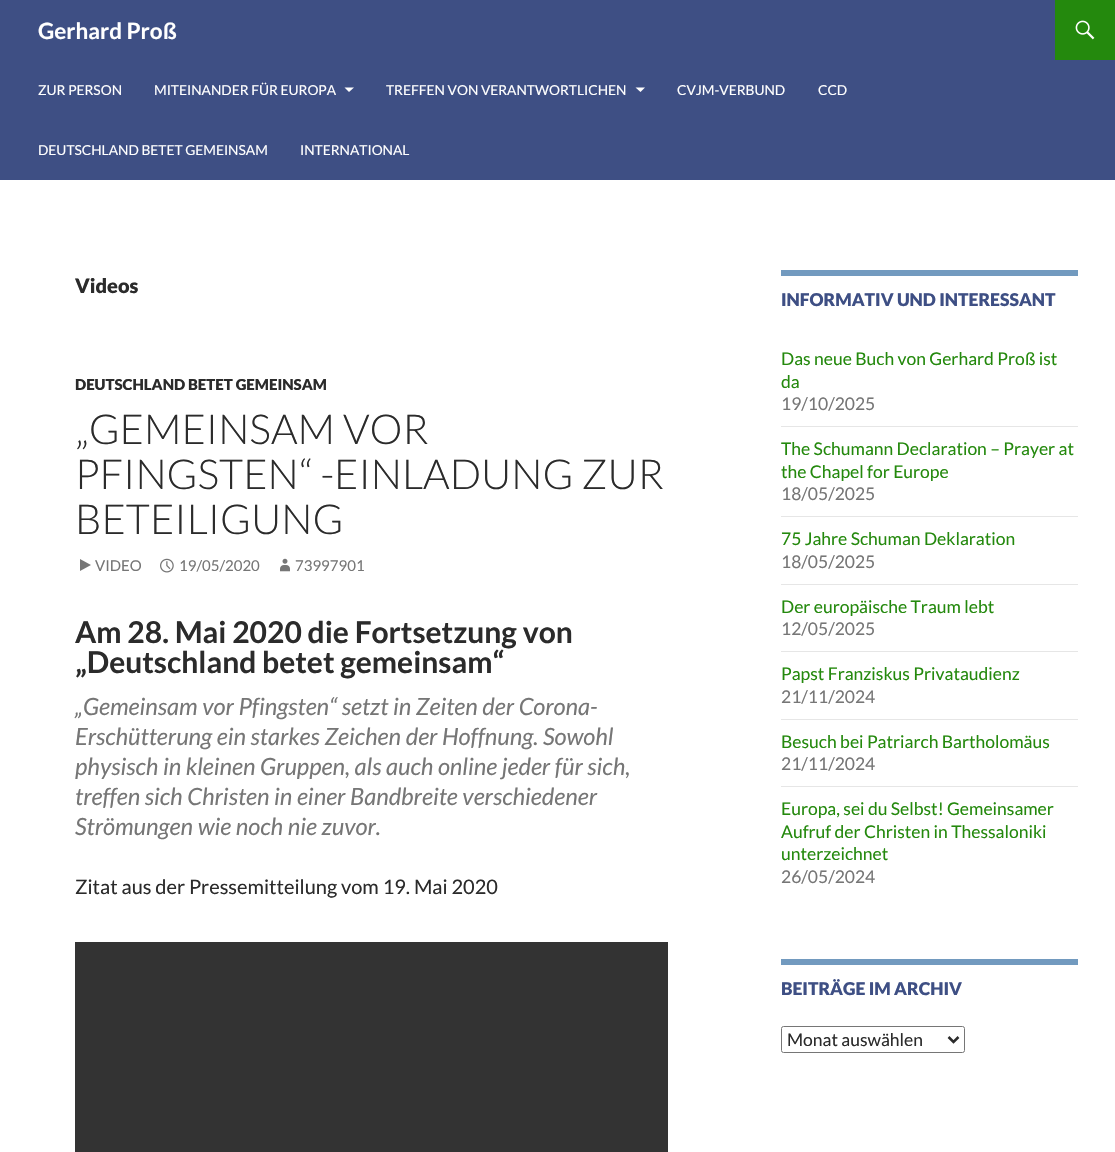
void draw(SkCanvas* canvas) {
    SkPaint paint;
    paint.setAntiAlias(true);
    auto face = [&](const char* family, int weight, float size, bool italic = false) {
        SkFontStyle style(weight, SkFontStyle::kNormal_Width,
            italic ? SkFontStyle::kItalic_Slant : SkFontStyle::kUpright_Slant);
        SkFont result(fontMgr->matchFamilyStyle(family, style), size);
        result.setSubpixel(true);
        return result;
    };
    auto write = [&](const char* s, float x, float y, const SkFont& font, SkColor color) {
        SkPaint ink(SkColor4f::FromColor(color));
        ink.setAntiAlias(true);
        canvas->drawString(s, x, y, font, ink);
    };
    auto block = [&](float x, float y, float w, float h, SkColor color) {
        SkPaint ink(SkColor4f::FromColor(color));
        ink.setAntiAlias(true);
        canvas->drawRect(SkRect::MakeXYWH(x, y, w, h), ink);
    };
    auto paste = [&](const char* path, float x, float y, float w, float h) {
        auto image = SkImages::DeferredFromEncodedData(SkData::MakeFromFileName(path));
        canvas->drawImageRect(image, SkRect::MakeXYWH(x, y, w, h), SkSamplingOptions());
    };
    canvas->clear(SK_ColorWHITE);
    block(0, 0, 1115, 180, SkColorSetRGB(62, 79, 132));
    auto kFont1 = face("Lato", 700, 22.5f);
    write("Gerhard Proß", 38, 39, kFont1, SK_ColorWHITE);
    block(1055, 0, 60, 60, SkColorSetRGB(36, 137, 13));
    paste("pic1.png", 1075, 20, 20, 20);
    auto kFont2 = face("Lato", 400, 13.75f);
    write("ZUR PERSON", 38, 95, kFont2, SK_ColorWHITE);
    write("MITEINANDER FÜR EUROPA", 154, 95, kFont2, SK_ColorWHITE);
    paint.setColor(SK_ColorWHITE);
    canvas->drawPath(SkPathBuilder().moveTo(344.5f, 87.5f).lineTo(349, 92).lineTo(354, 87.5f).close().detach(), paint);
    write("TREFFEN VON VERANTWORTLICHEN", 386, 95, kFont2, SK_ColorWHITE);
    canvas->drawPath(SkPathBuilder().moveTo(635.5f, 87.5f).lineTo(640.5f, 92).lineTo(645, 87.5f).close().detach(), paint);
    write("CVJM-VERBUND", 677, 95, kFont2, SK_ColorWHITE);
    write("CCD", 818, 95, kFont2, SK_ColorWHITE);
    write("DEUTSCHLAND BETET GEMEINSAM", 38, 155, kFont2, SK_ColorWHITE);
    write("INTERNATIONAL", 300, 155, kFont2, SK_ColorWHITE);
    auto kFont3 = face("Lato", 900, 20);
    write("Videos", 75, 293, kFont3, SkColorSetRGB(43, 43, 43));
    auto kFont4 = face("Lato", 900, 15);
    write("DEUTSCHLAND BETET GEMEINSAM", 75, 390, kFont4, SkColorSetRGB(43, 43, 43));
    auto kFont5 = face("Lato", 300, 41.25f);
    write("„GEMEINSAM VOR", 75, 444, kFont5, SkColorSetRGB(43, 43, 43));
    write("PFINGSTEN“ -EINLADUNG ZUR", 75, 489, kFont5, SkColorSetRGB(43, 43, 43));
    write("BETEILIGUNG", 75, 534, kFont5, SkColorSetRGB(43, 43, 43));
    paint.setColor(SkColorSetRGB(118, 118, 118));
    canvas->drawPath(SkPathBuilder().moveTo(80, 571).lineTo(80, 559).lineTo(91, 565).close().detach(), paint);
    auto kFont6 = face("Lato", 400, 15);
    write("VIDEO", 95, 571, kFont6, SkColorSetRGB(118, 118, 118));
    paste("pic2.png", 160, 558, 14, 15);
    write("19/05/2020", 179, 571, kFont6, SkColorSetRGB(118, 118, 118));
    paste("pic3.png", 280, 558, 10, 14);
    write("73997901", 295, 571, kFont6, SkColorSetRGB(118, 118, 118));
    auto kFont7 = face("Lato", 700, 30);
    write("Am 28. Mai 2020 die Fortsetzung von", 75, 643, kFont7, SkColorSetRGB(43, 43, 43));
    write("„Deutschland betet gemeinsam“", 75, 673, kFont7, SkColorSetRGB(43, 43, 43));
    auto kFont8 = face("Lato", 400, 23.75f, true);
    write("„Gemeinsam vor Pfingsten“ setzt in Zeiten der Corona-", 75, 715, kFont8, SkColorSetRGB(118, 118, 118));
    write("Erschütterung ein starkes Zeichen der Hoffnung. Sowohl", 75, 745, kFont8, SkColorSetRGB(118, 118, 118));
    write("physisch in kleinen Gruppen, als auch online jeder für sich,", 75, 775, kFont8, SkColorSetRGB(118, 118, 118));
    write("treffen sich Christen in einer Bandbreite verschiedener", 75, 805, kFont8, SkColorSetRGB(118, 118, 118));
    write("Strömungen wie noch nie zuvor.", 75, 835, kFont8, SkColorSetRGB(118, 118, 118));
    auto kFont9 = face("Lato", 400, 20);
    write("Zitat aus der Pressemitteilung vom 19. Mai 2020", 75, 894, kFont9, SkColorSetRGB(43, 43, 43));
    block(75, 942, 593, 210, SkColorSetRGB(51, 51, 51));
    block(781, 270, 297, 6, SkColorSetRGB(114, 154, 191));
    auto kFont10 = face("Lato", 900, 17.5f);
    write("INFORMATIV UND INTERESSANT", 781, 306, kFont10, SkColorSetRGB(62, 79, 132));
    auto kFont11 = face("Lato", 400, 17.5f);
    write("Das neue Buch von Gerhard Proß ist", 781, 365, kFont11, SkColorSetRGB(36, 137, 13));
    write("da", 781, 388, kFont11, SkColorSetRGB(36, 137, 13));
    write("19/10/2025", 781, 410, kFont11, SkColorSetRGB(118, 118, 118));
    block(781, 426, 297, 1, SkColorSetRGB(230, 230, 230));
    write("The Schumann Declaration – Prayer at", 781, 455, kFont11, SkColorSetRGB(36, 137, 13));
    write("the Chapel for Europe", 781, 478, kFont11, SkColorSetRGB(36, 137, 13));
    write("18/05/2025", 781, 500, kFont11, SkColorSetRGB(118, 118, 118));
    block(781, 516, 297, 1, SkColorSetRGB(230, 230, 230));
    write("75 Jahre Schuman Deklaration", 781, 545, kFont11, SkColorSetRGB(36, 137, 13));
    write("18/05/2025", 781, 568, kFont11, SkColorSetRGB(118, 118, 118));
    block(781, 584, 297, 1, SkColorSetRGB(230, 230, 230));
    write("Der europäische Traum lebt", 781, 613, kFont11, SkColorSetRGB(36, 137, 13));
    write("12/05/2025", 781, 635, kFont11, SkColorSetRGB(118, 118, 118));
    block(781, 651, 297, 1, SkColorSetRGB(230, 230, 230));
    write("Papst Franziskus Privataudienz", 781, 680, kFont11, SkColorSetRGB(36, 137, 13));
    write("21/11/2024", 781, 703, kFont11, SkColorSetRGB(118, 118, 118));
    block(781, 719, 297, 1, SkColorSetRGB(230, 230, 230));
    write("Besuch bei Patriarch Bartholomäus", 781, 748, kFont11, SkColorSetRGB(36, 137, 13));
    write("21/11/2024", 781, 770, kFont11, SkColorSetRGB(118, 118, 118));
    block(781, 786, 297, 1, SkColorSetRGB(230, 230, 230));
    write("Europa, sei du Selbst! Gemeinsamer", 781, 815, kFont11, SkColorSetRGB(36, 137, 13));
    write("Aufruf der Christen in Thessaloniki", 781, 838, kFont11, SkColorSetRGB(36, 137, 13));
    write("unterzeichnet", 781, 860, kFont11, SkColorSetRGB(36, 137, 13));
    write("26/05/2024", 781, 883, kFont11, SkColorSetRGB(118, 118, 118));
    block(781, 959, 297, 6, SkColorSetRGB(114, 154, 191));
    write("BEITRÄGE IM ARCHIV", 781, 995, kFont10, SkColorSetRGB(62, 79, 132));
    paint.setStyle(SkPaint::kStroke_Style);
    paint.setStrokeWidth(1);
    canvas->drawRoundRect(SkRect::MakeXYWH(781.5f, 1026.5f, 183, 26), 2, 2, paint);
    paint.setStrokeWidth(2.5f);
    paint.setColor(SkColorSetRGB(43, 43, 43));
    canvas->drawPath(SkPathBuilder().moveTo(948.5f, 1037).lineTo(953.5f, 1042).lineTo(958.5f, 1037).detach(), paint);
    write("Monat auswählen", 787, 1046, kFont11, SkColorSetRGB(43, 43, 43));
}
